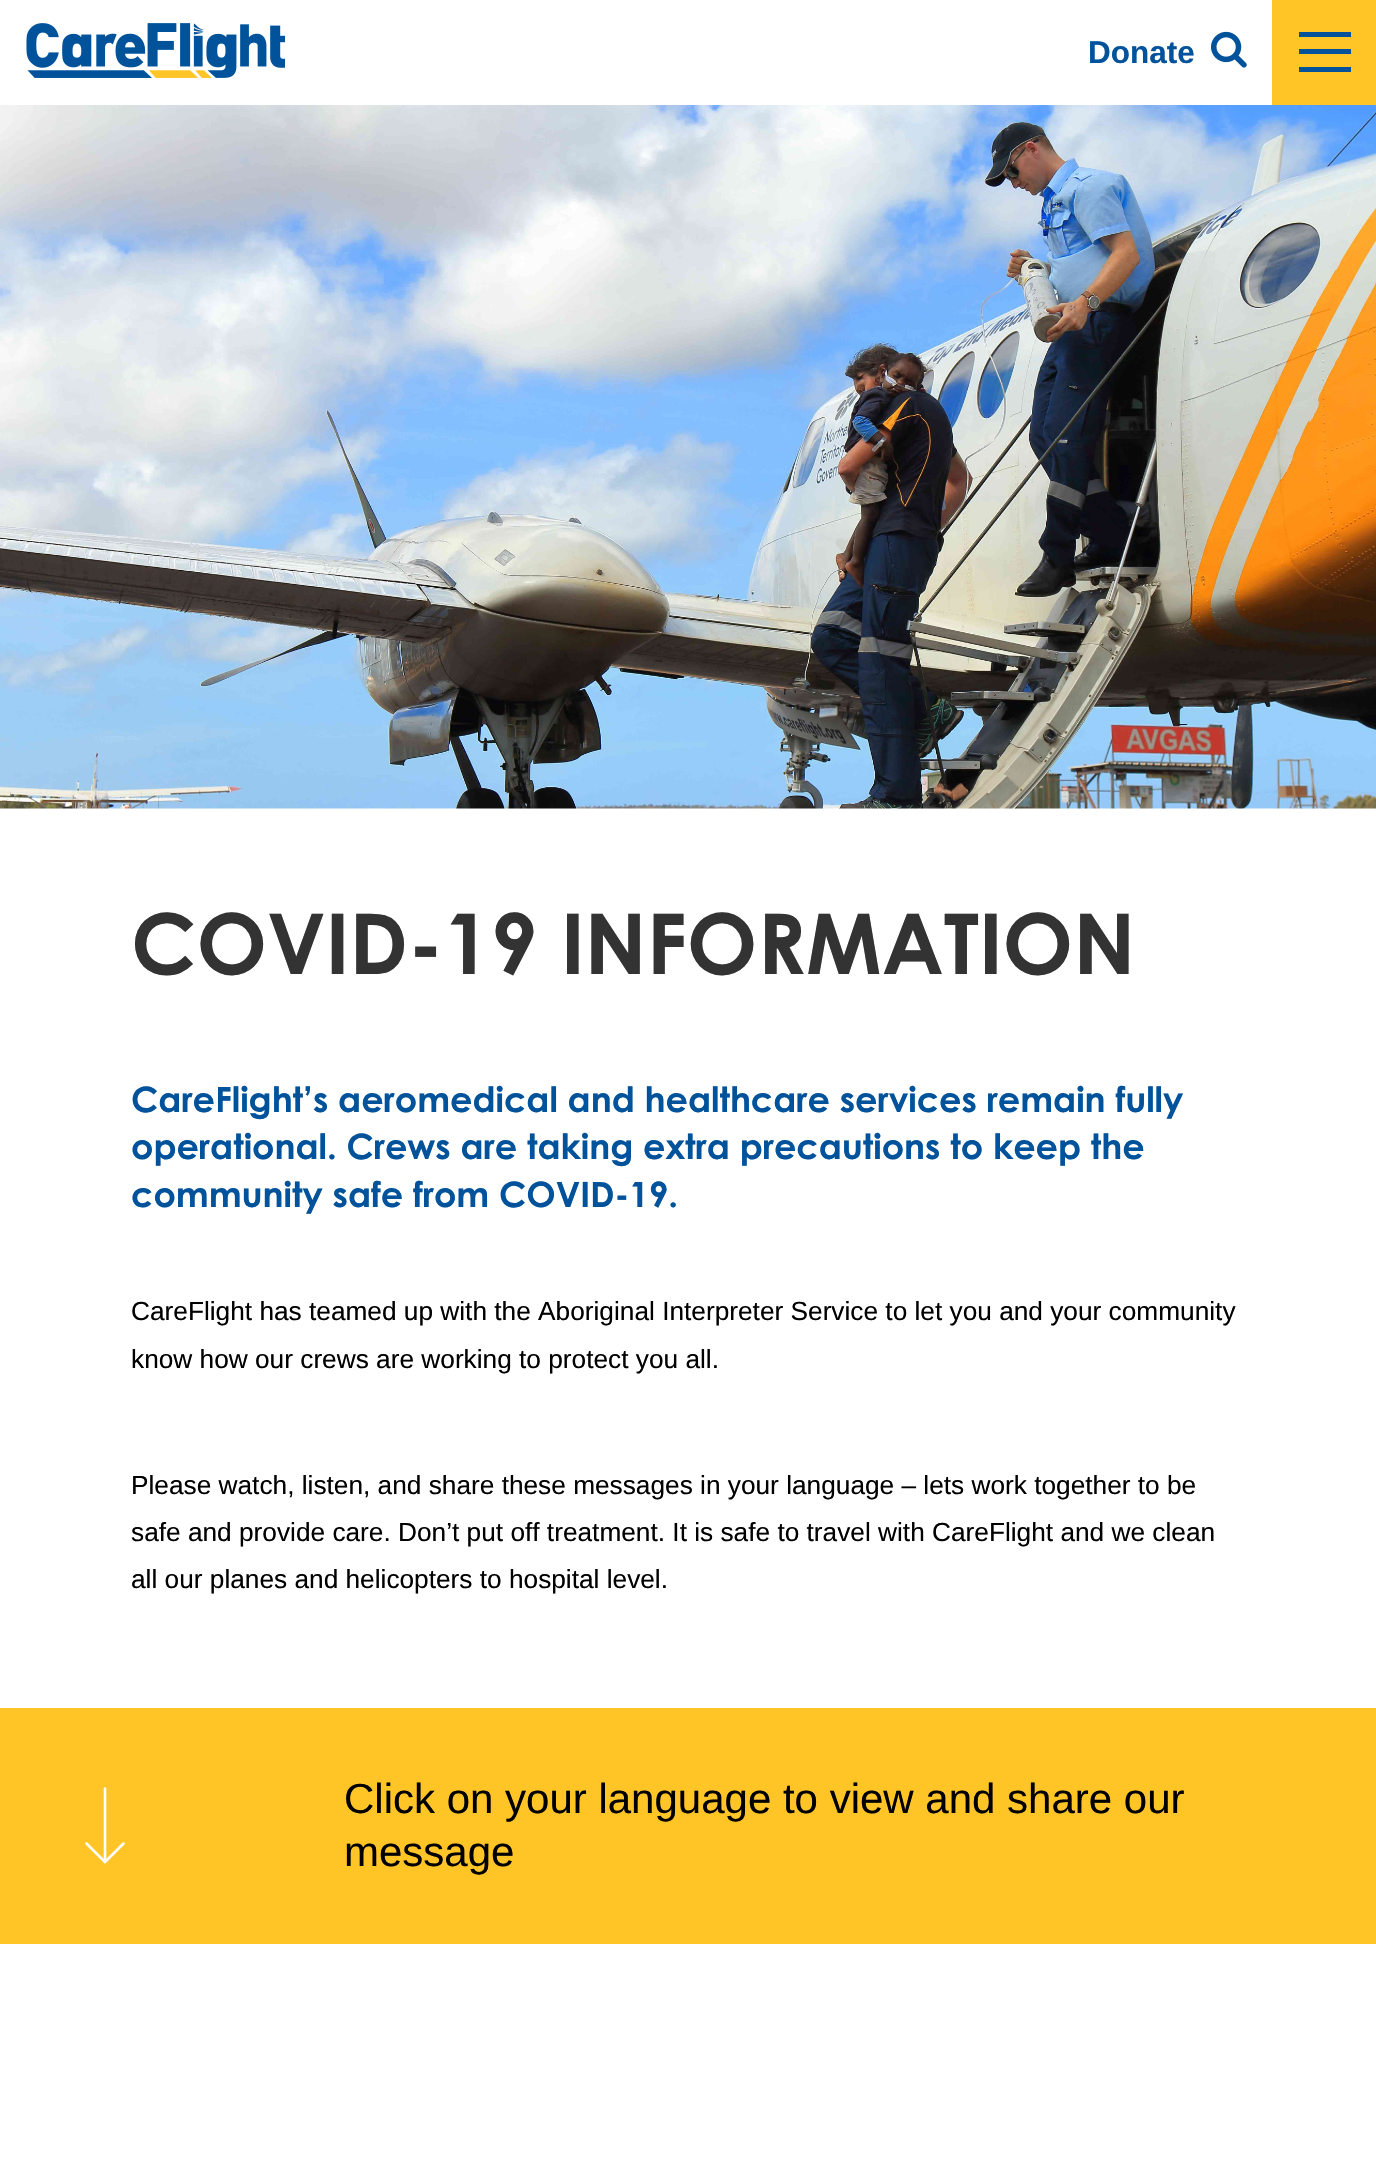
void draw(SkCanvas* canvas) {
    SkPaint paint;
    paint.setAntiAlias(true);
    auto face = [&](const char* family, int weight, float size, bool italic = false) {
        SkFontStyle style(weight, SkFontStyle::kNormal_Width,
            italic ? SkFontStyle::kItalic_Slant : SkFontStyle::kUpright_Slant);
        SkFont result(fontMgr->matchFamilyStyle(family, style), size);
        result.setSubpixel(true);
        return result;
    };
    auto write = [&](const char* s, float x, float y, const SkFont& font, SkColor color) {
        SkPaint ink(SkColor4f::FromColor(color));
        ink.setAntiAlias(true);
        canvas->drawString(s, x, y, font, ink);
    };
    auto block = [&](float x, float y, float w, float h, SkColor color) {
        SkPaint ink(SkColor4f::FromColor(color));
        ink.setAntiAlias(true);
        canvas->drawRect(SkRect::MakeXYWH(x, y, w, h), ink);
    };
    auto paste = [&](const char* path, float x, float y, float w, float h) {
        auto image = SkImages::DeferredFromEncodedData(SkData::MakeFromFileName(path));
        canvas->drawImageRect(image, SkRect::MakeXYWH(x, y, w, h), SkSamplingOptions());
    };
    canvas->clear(SK_ColorWHITE);
    paste("pic1.png", 26, 23, 259, 55);
    auto kFont1 = face("Liberation Sans", 700, 31.5f);
    write("Donate", 1088, 63, kFont1, SkColorSetRGB(0, 82, 155));
    paste("pic2.png", 1211, 31, 36, 37);
    block(1272, 0, 104, 105, SkColorSetRGB(255, 196, 37));
    block(1299, 32, 52, 5, SkColorSetRGB(0, 83, 155));
    block(1299, 49, 52, 5, SkColorSetRGB(0, 83, 155));
    block(1299, 67, 52, 5, SkColorSetRGB(0, 83, 155));
    paste("pic3.png", 0, 105, 1376, 704);
    auto kFont2 = face("Century Gothic", 700, 84);
    write("COVID-19 INFORMATION", 131, 974, kFont2, SkColorSetRGB(51, 51, 51));
    auto kFont3 = face("Century Gothic", 700, 35);
    write("CareFlight’s aeromedical and healthcare services remain fully", 131, 1112, kFont3, SkColorSetRGB(0, 82, 155));
    write("operational. Crews are taking extra precautions to keep the", 131, 1159, kFont3, SkColorSetRGB(0, 82, 155));
    write("community safe from COVID-19.", 131, 1207, kFont3, SkColorSetRGB(0, 82, 155));
    auto kFont4 = face("Liberation Sans", 400, 26.25f);
    write("CareFlight has teamed up with the Aboriginal Interpreter Service to let you and your community", 131, 1320, kFont4, SK_ColorBLACK);
    write("know how our crews are working to protect you all.", 131, 1368, kFont4, SK_ColorBLACK);
    write("Please watch, listen, and share these messages in your language – lets work together to be", 131, 1494, kFont4, SK_ColorBLACK);
    write("safe and provide care. Don’t put off treatment. It is safe to travel with CareFlight and we clean", 131, 1541, kFont4, SK_ColorBLACK);
    write("all our planes and helicopters to hospital level.", 131, 1588, kFont4, SK_ColorBLACK);
    block(0, 1708, 1376, 236, SkColorSetRGB(255, 196, 37));
    paint.setStyle(SkPaint::kStroke_Style);
    paint.setStrokeWidth(2.6f);
    paint.setStrokeCap(SkPaint::kRound_Cap);
    paint.setColor(SK_ColorWHITE);
    canvas->drawPath(SkPathBuilder().moveTo(105, 1788.5f).lineTo(105, 1862).detach(), paint);
    canvas->drawPath(SkPathBuilder().moveTo(123.5f, 1843.5f).lineTo(105, 1862).moveTo(86.5f, 1843.5f).lineTo(105, 1862).detach(), paint);
    auto kFont5 = face("Liberation Sans", 400, 42);
    write("Click on your language to view and share our", 344, 1813, kFont5, SK_ColorBLACK);
    write("message", 344, 1866, kFont5, SK_ColorBLACK);
}
